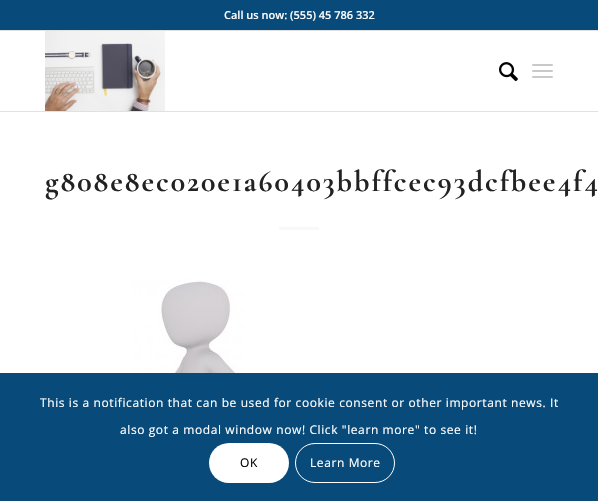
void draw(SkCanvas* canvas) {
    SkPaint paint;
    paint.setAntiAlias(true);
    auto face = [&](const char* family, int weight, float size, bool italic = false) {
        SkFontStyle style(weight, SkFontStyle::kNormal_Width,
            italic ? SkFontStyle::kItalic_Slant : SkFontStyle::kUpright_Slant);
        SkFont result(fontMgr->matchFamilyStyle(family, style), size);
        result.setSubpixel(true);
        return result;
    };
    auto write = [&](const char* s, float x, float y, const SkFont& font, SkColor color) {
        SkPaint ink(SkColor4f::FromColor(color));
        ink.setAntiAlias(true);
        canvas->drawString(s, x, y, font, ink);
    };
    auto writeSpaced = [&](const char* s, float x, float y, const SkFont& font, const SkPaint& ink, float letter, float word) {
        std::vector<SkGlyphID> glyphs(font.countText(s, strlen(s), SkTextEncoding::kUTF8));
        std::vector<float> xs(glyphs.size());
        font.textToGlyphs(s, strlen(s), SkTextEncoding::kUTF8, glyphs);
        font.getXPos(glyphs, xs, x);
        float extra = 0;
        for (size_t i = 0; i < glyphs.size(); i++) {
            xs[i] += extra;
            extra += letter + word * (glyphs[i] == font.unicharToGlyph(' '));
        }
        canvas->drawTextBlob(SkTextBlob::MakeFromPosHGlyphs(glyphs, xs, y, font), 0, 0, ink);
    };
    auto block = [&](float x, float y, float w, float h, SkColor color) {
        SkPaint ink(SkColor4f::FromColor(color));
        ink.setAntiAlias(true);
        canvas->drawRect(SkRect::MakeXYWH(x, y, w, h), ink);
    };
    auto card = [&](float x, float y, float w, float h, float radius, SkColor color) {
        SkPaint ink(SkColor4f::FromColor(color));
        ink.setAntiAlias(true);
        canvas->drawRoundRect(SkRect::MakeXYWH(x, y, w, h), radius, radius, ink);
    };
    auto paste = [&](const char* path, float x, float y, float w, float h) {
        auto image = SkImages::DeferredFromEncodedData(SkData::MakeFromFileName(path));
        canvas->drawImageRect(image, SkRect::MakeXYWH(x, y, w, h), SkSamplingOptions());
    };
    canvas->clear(SK_ColorWHITE);
    block(0, 0, 598, 30, SkColorSetRGB(8, 74, 121));
    block(0, 30, 598, 1, SkColorSetRGB(225, 225, 225));
    auto kFont1 = face("Open Sans", 600, 11);
    write("Call us now: (555) 45 786 332", 224, 19, kFont1, SK_ColorWHITE);
    block(0, 111, 598, 1, SkColorSetRGB(225, 225, 225));
    paste("pic1.png", 45, 31, 120, 80);
    paste("pic2.png", 499, 62, 19, 20);
    card(532, 70, 21, 2, 1, SkColorSetRGB(201, 201, 201));
    card(532, 64, 21, 2, 1, SkColorSetRGB(201, 201, 201));
    card(532, 76, 21, 2, 1, SkColorSetRGB(201, 201, 201));
    auto kFont2 = face("Cormorant Garamond", 700, 30);
    paint.setColor(SkColorSetRGB(34, 34, 34));
    writeSpaced("g808e8ec020e1a60403bbffcec93dcfbee4f4", 45, 191, kFont2, paint, 2, 0);
    block(279, 227, 40, 3, SkColorSetRGB(248, 248, 248));
    paste("pic3.png", 131, 279, 114, 94);
    block(0, 373, 598, 128, SkColorSetRGB(8, 74, 121));
    auto kFont3 = face("Open Sans", 400, 12);
    paint.setColor(SK_ColorWHITE);
    writeSpaced("This is a notification that can be used for cookie consent or other important news. It", 40, 407, kFont3, paint, 0.6f, 0);
    writeSpaced("also got a modal window now! Click \"learn more\" to see it!", 120, 434, kFont3, paint, 0.6f, 0);
    card(209, 443, 80, 40, 20, SK_ColorWHITE);
    paint.setColor(SK_ColorBLACK);
    writeSpaced("OK", 240, 467, kFont3, paint, 0.6f, 0);
    paint.setStyle(SkPaint::kStroke_Style);
    paint.setStrokeWidth(1);
    paint.setColor(SK_ColorWHITE);
    canvas->drawRoundRect(SkRect::MakeXYWH(295.5f, 443.5f, 99, 39), 19.5f, 19.5f, paint);
    paint.setStyle(SkPaint::kFill_Style);
    writeSpaced("Learn More", 310, 467, kFont3, paint, 0.6f, 0);
}
